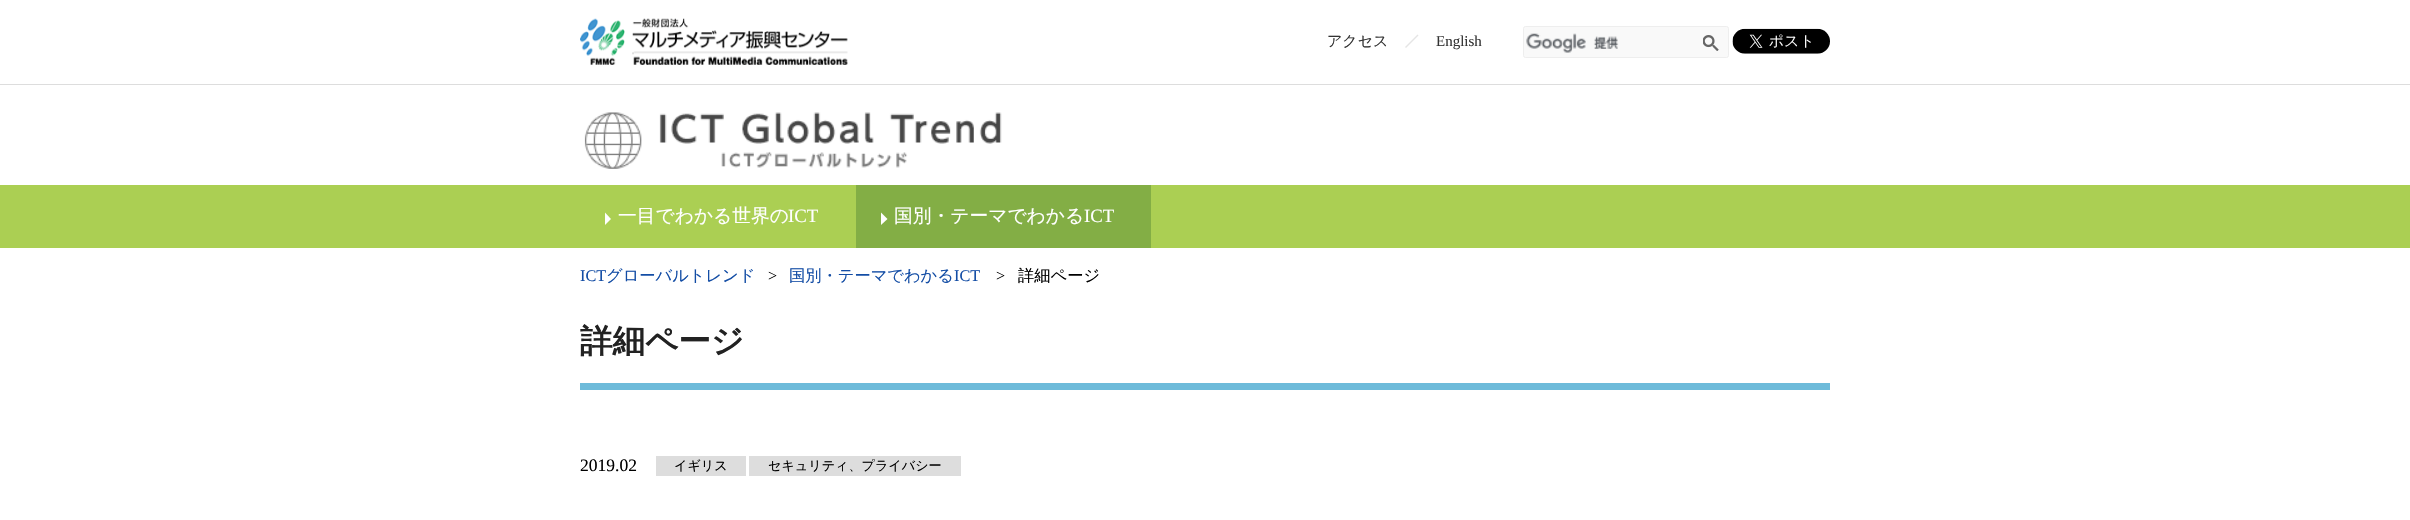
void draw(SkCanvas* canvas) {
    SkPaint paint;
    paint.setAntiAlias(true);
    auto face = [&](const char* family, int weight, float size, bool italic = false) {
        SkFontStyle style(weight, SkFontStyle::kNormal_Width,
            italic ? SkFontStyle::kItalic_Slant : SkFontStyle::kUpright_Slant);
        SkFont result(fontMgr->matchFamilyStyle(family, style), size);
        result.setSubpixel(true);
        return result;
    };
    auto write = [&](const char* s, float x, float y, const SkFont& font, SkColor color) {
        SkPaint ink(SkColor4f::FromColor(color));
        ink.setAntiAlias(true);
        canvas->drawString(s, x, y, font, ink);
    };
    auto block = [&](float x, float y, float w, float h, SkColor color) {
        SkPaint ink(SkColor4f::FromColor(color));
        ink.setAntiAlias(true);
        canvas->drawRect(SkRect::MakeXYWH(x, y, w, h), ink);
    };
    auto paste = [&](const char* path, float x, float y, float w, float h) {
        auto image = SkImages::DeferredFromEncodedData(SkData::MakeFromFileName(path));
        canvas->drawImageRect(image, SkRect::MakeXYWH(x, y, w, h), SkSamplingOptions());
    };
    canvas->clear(SK_ColorWHITE);
    paste("pic1.png", 580, 18, 268, 47);
    auto kFont1 = face("WenQuanYi Zen Hei", 500, 15);
    write("アクセス", 1327, 46, kFont1, SkColorSetRGB(51, 51, 51));
    paint.setColor(SkColorSetRGB(229, 229, 229));
    canvas->drawPath(SkPathBuilder().moveTo(1417.5f, 34.5f).lineTo(1418.5f, 35.5f).lineTo(1406, 48).lineTo(1405, 47).close().detach(), paint);
    auto kFont2 = face("Liberation Serif", 400, 15);
    write("English", 1436, 46, kFont2, SkColorSetRGB(51, 51, 51));
    paint.setColor(SkColorSetRGB(249, 249, 249));
    canvas->drawRoundRect(SkRect::MakeXYWH(1523.5f, 26.5f, 205, 31), 2, 2, paint);
    paint.setStyle(SkPaint::kStroke_Style);
    paint.setStrokeWidth(1);
    paint.setColor(SkColorSetRGB(238, 238, 238));
    canvas->drawRoundRect(SkRect::MakeXYWH(1523.5f, 26.5f, 205, 31), 2, 2, paint);
    paste("pic2.png", 1526, 33, 93, 20);
    paste("pic3.png", 1703, 35, 16, 16);
    paste("pic4.png", 1732, 28, 98, 26);
    block(0, 84, 2410, 1, SkColorSetRGB(221, 221, 221));
    paste("pic5.png", 584, 112, 418, 57);
    block(0, 185, 2410, 63, SkColorSetRGB(171, 207, 83));
    paint.setStyle(SkPaint::kFill_Style);
    paint.setColor(SK_ColorWHITE);
    canvas->drawPath(SkPathBuilder().moveTo(605, 225).lineTo(605, 212.5f).lineTo(611, 219).close().detach(), paint);
    auto kFont3 = face("WenQuanYi Zen Hei", 500, 18.75f);
    write("一目でわかる世界の", 618, 222, kFont3, SK_ColorWHITE);
    auto kFont4 = face("Liberation Serif", 400, 18.75f);
    write("ICT", 788, 222, kFont4, SK_ColorWHITE);
    block(856, 185, 295, 63, SkColorSetRGB(131, 174, 69));
    canvas->drawPath(SkPathBuilder().moveTo(881, 225).lineTo(881, 212.5f).lineTo(887.5f, 219).close().detach(), paint);
    write("国別・テーマでわかる", 894, 222, kFont3, SK_ColorWHITE);
    write("ICT", 1084, 222, kFont4, SK_ColorWHITE);
    auto kFont5 = face("Liberation Serif", 400, 16.25f);
    write("ICT", 580, 281, kFont5, SkColorSetRGB(19, 77, 165));
    auto kFont6 = face("WenQuanYi Zen Hei", 500, 16.25f);
    write("グローバルトレンド", 606, 281, kFont6, SkColorSetRGB(19, 77, 165));
    write(">", 768, 281, kFont5, SK_ColorBLACK);
    write("国別・テーマでわかる", 789, 281, kFont6, SkColorSetRGB(19, 77, 165));
    write("ICT", 954, 281, kFont5, SkColorSetRGB(19, 77, 165));
    write(">", 996, 281, kFont5, SK_ColorBLACK);
    write("詳細ページ", 1018, 281, kFont6, SK_ColorBLACK);
    auto kFont7 = face("WenQuanYi Zen Hei", 700, 32.5f);
    write("詳細ページ", 580, 352, kFont7, SkColorSetRGB(34, 34, 34));
    block(580, 383, 1250, 7, SkColorSetRGB(110, 187, 218));
    auto kFont8 = face("Liberation Serif", 400, 17.5f);
    write("2019.02", 580, 471, kFont8, SK_ColorBLACK);
    block(656, 456, 90, 20, SkColorSetRGB(221, 221, 221));
    auto kFont9 = face("WenQuanYi Zen Hei", 500, 13.1f);
    write("イギリス", 674, 470, kFont9, SK_ColorBLACK);
    block(749, 456, 212, 20, SkColorSetRGB(221, 221, 221));
    write("セキュリティ、プライバシー", 768, 470, kFont9, SK_ColorBLACK);
}
